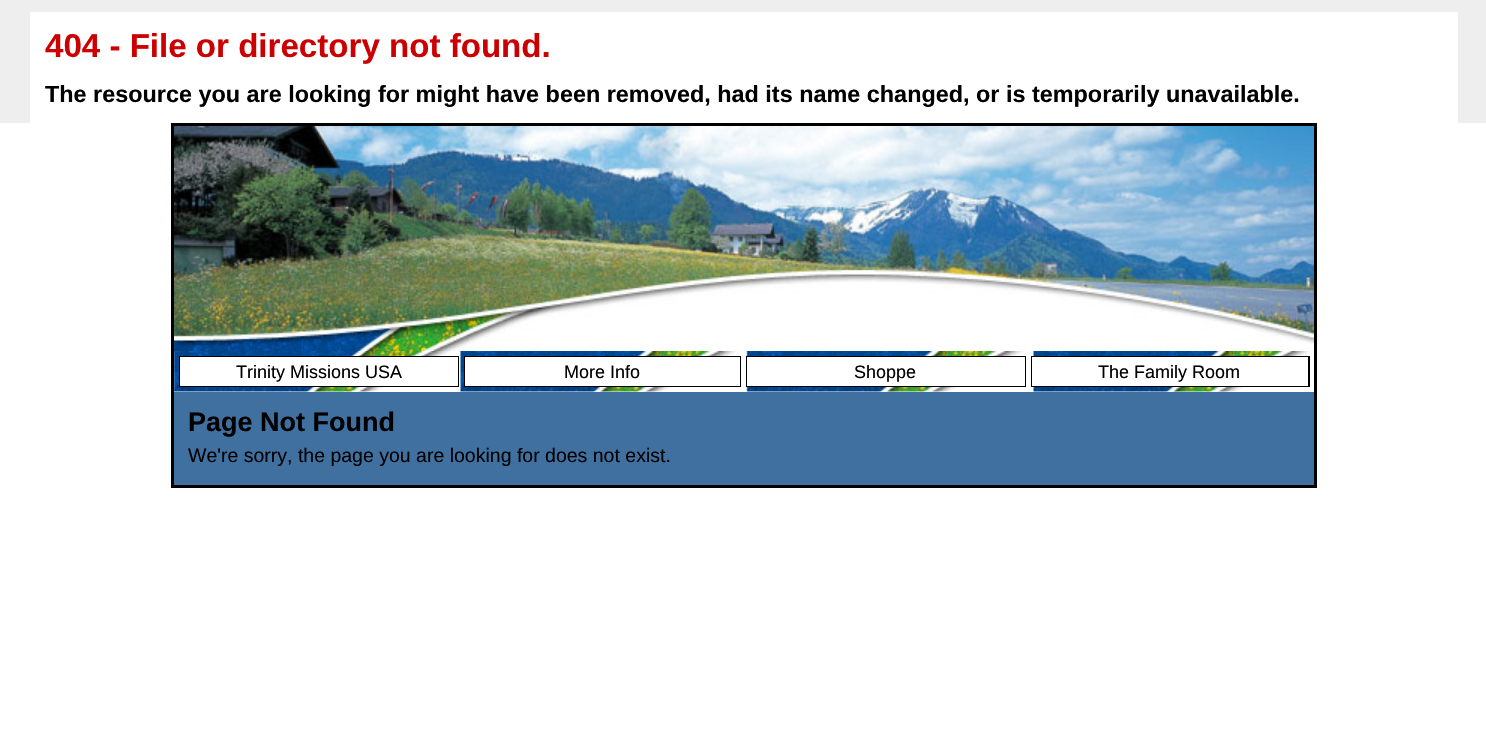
void draw(SkCanvas* canvas) {
    SkPaint paint;
    paint.setAntiAlias(true);
    auto face = [&](const char* family, int weight, float size, bool italic = false) {
        SkFontStyle style(weight, SkFontStyle::kNormal_Width,
            italic ? SkFontStyle::kItalic_Slant : SkFontStyle::kUpright_Slant);
        SkFont result(fontMgr->matchFamilyStyle(family, style), size);
        result.setSubpixel(true);
        return result;
    };
    auto write = [&](const char* s, float x, float y, const SkFont& font, SkColor color) {
        SkPaint ink(SkColor4f::FromColor(color));
        ink.setAntiAlias(true);
        canvas->drawString(s, x, y, font, ink);
    };
    auto block = [&](float x, float y, float w, float h, SkColor color) {
        SkPaint ink(SkColor4f::FromColor(color));
        ink.setAntiAlias(true);
        canvas->drawRect(SkRect::MakeXYWH(x, y, w, h), ink);
    };
    auto paste = [&](const char* path, float x, float y, float w, float h) {
        auto image = SkImages::DeferredFromEncodedData(SkData::MakeFromFileName(path));
        canvas->drawImageRect(image, SkRect::MakeXYWH(x, y, w, h), SkSamplingOptions());
    };
    canvas->clear(SkColorSetRGB(238, 238, 238));
    block(30, 12, 1428, 111, SK_ColorWHITE);
    auto kFont1 = face("Liberation Sans", 700, 33.1f);
    write("404 - File or directory not found.", 45, 57, kFont1, SkColorSetRGB(204, 0, 0));
    auto kFont2 = face("Liberation Sans", 700, 23.4f);
    write("The resource you are looking for might have been removed, had its name changed, or is temporarily unavailable.", 45, 102, kFont2, SK_ColorBLACK);
    block(0, 123, 1486, 630, SK_ColorWHITE);
    block(171, 123, 1146, 365, SK_ColorBLACK);
    paste("pic1.png", 174, 126, 1140, 225);
    block(174, 351, 1140, 41, SK_ColorWHITE);
    paste("pic2.png", 174, 351, 1136, 41);
    block(179, 356, 280, 31, SK_ColorBLACK);
    block(180, 357, 278, 29, SK_ColorWHITE);
    auto kFont3 = face("Liberation Sans", 400, 18);
    write("Trinity Missions USA", 236, 378, kFont3, SK_ColorBLACK);
    block(464, 356, 277, 31, SK_ColorBLACK);
    block(465, 357, 275, 29, SK_ColorWHITE);
    write("More Info", 564, 378, kFont3, SK_ColorBLACK);
    block(746, 356, 280, 31, SK_ColorBLACK);
    block(747, 357, 278, 29, SK_ColorWHITE);
    write("Shoppe", 854, 378, kFont3, SK_ColorBLACK);
    block(1031, 356, 279, 31, SK_ColorBLACK);
    block(1032, 357, 276, 29, SK_ColorWHITE);
    write("The Family Room", 1098, 378, kFont3, SK_ColorBLACK);
    block(174, 392, 1140, 93, SkColorSetRGB(64, 112, 160));
    auto kFont4 = face("Liberation Sans", 700, 27);
    write("Page Not Found", 188, 431, kFont4, SK_ColorBLACK);
    auto kFont5 = face("Liberation Sans", 400, 19.5f);
    write("We're sorry, the page you are looking for does not exist.", 188, 462, kFont5, SK_ColorBLACK);
}
